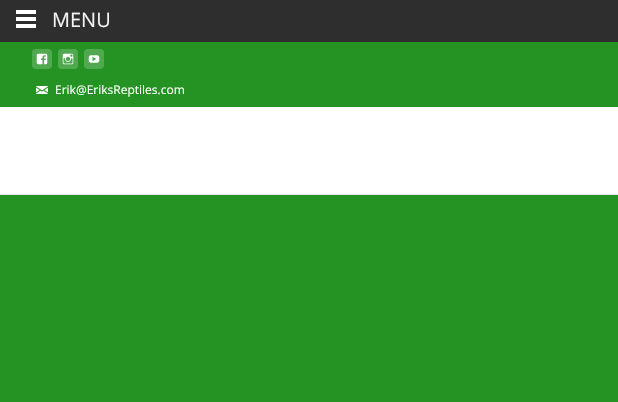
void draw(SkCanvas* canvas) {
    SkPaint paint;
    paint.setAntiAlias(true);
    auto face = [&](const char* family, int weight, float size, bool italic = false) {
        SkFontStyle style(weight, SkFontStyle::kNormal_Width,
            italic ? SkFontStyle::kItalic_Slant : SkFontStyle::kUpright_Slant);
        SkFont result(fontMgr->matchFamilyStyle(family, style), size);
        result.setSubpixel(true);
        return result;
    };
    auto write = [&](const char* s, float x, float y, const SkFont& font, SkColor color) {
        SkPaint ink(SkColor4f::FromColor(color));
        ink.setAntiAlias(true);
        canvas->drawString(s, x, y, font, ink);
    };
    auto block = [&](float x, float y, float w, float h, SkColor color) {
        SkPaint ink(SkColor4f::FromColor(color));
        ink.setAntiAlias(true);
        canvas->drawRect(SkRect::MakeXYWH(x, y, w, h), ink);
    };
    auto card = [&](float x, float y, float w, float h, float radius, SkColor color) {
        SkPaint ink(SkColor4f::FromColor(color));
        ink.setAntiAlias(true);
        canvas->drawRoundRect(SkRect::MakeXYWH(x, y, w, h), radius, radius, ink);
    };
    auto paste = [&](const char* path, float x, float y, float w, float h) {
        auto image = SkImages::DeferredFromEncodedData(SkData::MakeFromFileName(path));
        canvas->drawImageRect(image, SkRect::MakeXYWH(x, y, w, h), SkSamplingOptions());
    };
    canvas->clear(SK_ColorWHITE);
    block(0, 0, 618, 42, SkColorSetRGB(46, 46, 46));
    block(16, 10, 20, 4, SK_ColorWHITE);
    block(16, 17, 20, 4, SK_ColorWHITE);
    block(16, 24, 20, 4, SK_ColorWHITE);
    auto kFont1 = face("Open Sans", 400, 20);
    write("MENU", 52, 27, kFont1, SkColorSetRGB(242, 242, 242));
    block(0, 42, 618, 65, SkColorSetRGB(37, 147, 35));
    card(32, 49, 20, 20, 4, SkColorSetRGB(81, 169, 79));
    paste("pic1.png", 36, 53, 12, 12);
    card(58, 49, 20, 20, 4, SkColorSetRGB(81, 169, 79));
    paste("pic2.png", 62, 53, 12, 12);
    card(84, 49, 20, 20, 4, SkColorSetRGB(81, 169, 79));
    paste("pic3.png", 88, 55, 12, 8);
    paste("pic4.png", 36, 86, 12, 8);
    auto kFont2 = face("Open Sans", 400, 12);
    write("Erik@EriksReptiles.com", 55, 94, kFont2, SK_ColorWHITE);
    block(0, 194, 618, 1, SkColorSetRGB(231, 231, 231));
    block(0, 195, 618, 207, SkColorSetRGB(37, 147, 35));
}
